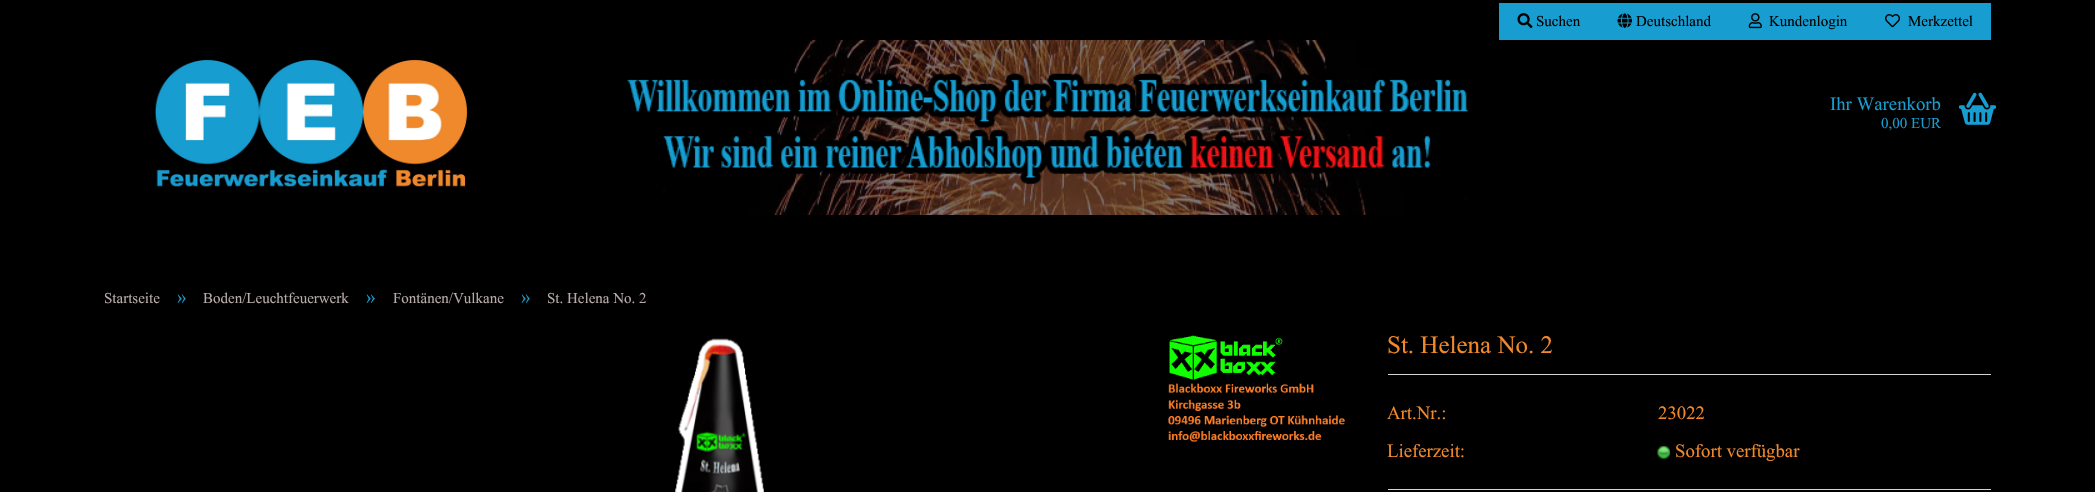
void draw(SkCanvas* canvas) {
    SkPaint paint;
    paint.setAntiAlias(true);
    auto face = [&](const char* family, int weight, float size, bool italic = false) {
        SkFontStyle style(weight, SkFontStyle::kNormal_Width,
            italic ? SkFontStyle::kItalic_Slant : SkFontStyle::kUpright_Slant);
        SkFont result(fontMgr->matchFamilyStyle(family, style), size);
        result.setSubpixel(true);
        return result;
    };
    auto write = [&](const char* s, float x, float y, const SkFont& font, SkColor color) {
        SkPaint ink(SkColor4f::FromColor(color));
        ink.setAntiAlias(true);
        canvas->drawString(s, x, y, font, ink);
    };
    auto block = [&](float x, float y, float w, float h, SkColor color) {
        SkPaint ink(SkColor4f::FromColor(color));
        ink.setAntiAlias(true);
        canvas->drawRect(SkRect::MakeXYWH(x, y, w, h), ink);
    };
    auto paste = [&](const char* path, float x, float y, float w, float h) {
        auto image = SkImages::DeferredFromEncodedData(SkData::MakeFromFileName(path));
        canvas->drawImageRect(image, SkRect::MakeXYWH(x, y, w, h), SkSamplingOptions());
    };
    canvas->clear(SK_ColorBLACK);
    paste("pic1.png", 627, 40, 842, 175);
    block(1499, 3, 492, 37, SkColorSetRGB(23, 157, 208));
    paste("pic2.png", 1517, 13, 16, 16);
    auto kFont1 = face("Times New Roman", 400, 15);
    write("Suchen", 1536, 26, kFont1, SK_ColorBLACK);
    paste("pic3.png", 1617, 13, 15, 15);
    write("Deutschland", 1636, 26, kFont1, SK_ColorBLACK);
    paste("pic4.png", 1748, 13, 14, 16);
    write("Kundenlogin", 1769, 26, kFont1, SK_ColorBLACK);
    paste("pic5.png", 1885, 14, 15, 14);
    write("Merkzettel", 1908, 26, kFont1, SK_ColorBLACK);
    paste("pic6.png", 154, 59, 314, 128);
    auto kFont2 = face("Times New Roman", 400, 18.75f);
    write("Ihr Warenkorb", 1830, 110, kFont2, SkColorSetRGB(23, 157, 208));
    write("0,00 EUR", 1881, 128, kFont1, SkColorSetRGB(23, 157, 208));
    paste("pic7.png", 1959, 92, 37, 33);
    write("Startseite", 104, 303, kFont1, SkColorSetRGB(183, 170, 170));
    write("»", 177, 303, kFont2, SkColorSetRGB(23, 157, 208));
    write("Boden/Leuchtfeuerwerk", 203, 303, kFont1, SkColorSetRGB(183, 170, 170));
    write("»", 366, 303, kFont2, SkColorSetRGB(23, 157, 208));
    write("Fontänen/Vulkane", 393, 303, kFont1, SkColorSetRGB(183, 170, 170));
    write("»", 521, 303, kFont2, SkColorSetRGB(23, 157, 208));
    write("St. Helena No. 2", 547, 303, kFont1, SkColorSetRGB(183, 170, 170));
    paste("pic8.png", 675, 338, 89, 154);
    paste("pic9.png", 1168, 335, 177, 107);
    block(1388, 374, 603, 1, SkColorSetRGB(213, 213, 213));
    auto kFont3 = face("Times New Roman", 400, 25);
    write("St. Helena No. 2", 1387, 353, kFont3, SkColorSetRGB(240, 136, 44));
    block(1388, 489, 603, 1, SkColorSetRGB(213, 213, 213));
    write("Art.Nr.:", 1387, 419, kFont2, SkColorSetRGB(240, 136, 44));
    write("23022", 1658, 419, kFont2, SkColorSetRGB(240, 136, 44));
    write("Lieferzeit:", 1387, 457, kFont2, SkColorSetRGB(240, 136, 44));
    paste("pic10.png", 1657, 446, 13, 13);
    write("Sofort verfügbar", 1675, 457, kFont2, SkColorSetRGB(240, 136, 44));
}
